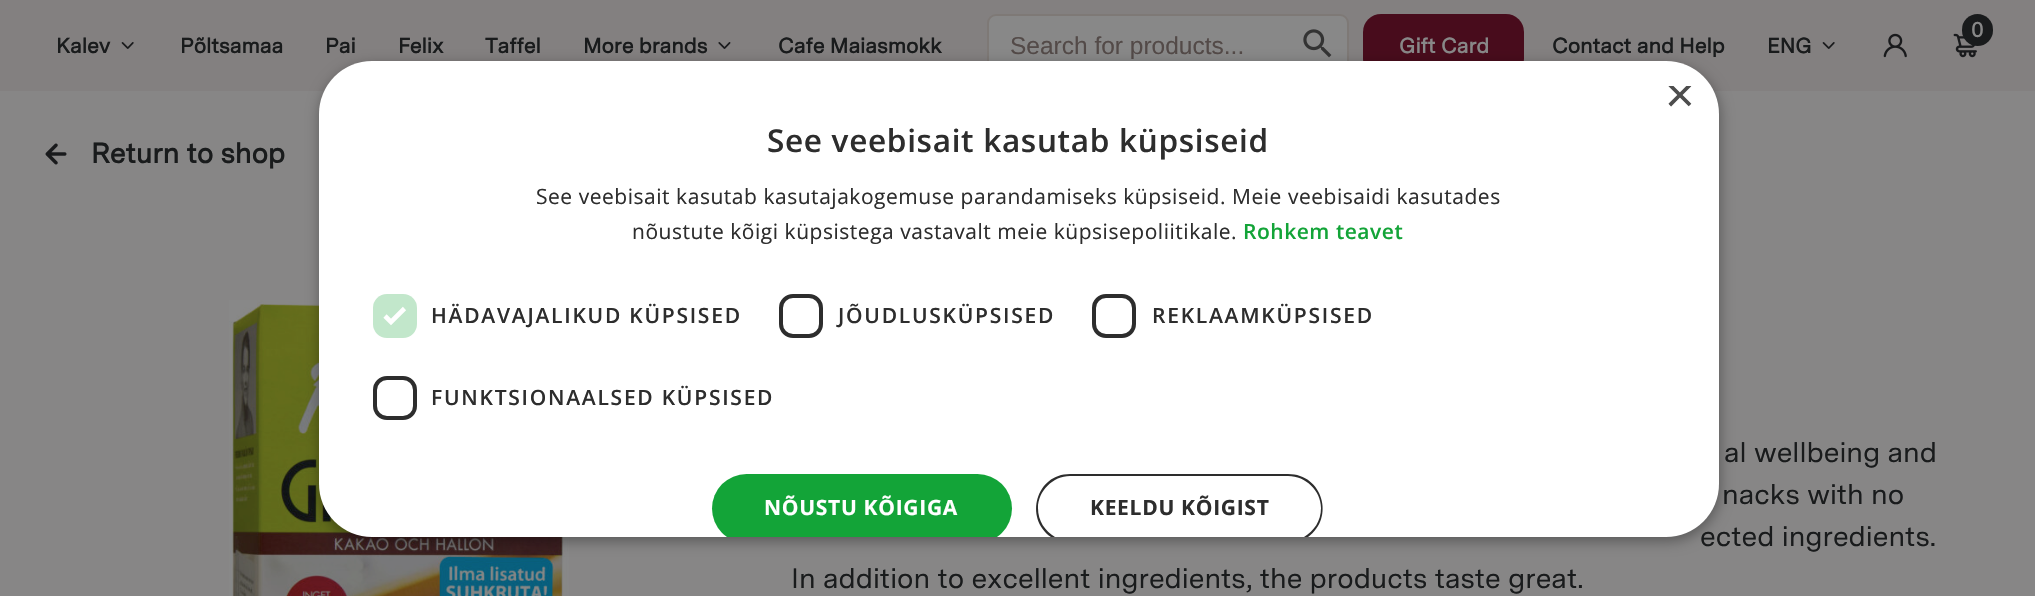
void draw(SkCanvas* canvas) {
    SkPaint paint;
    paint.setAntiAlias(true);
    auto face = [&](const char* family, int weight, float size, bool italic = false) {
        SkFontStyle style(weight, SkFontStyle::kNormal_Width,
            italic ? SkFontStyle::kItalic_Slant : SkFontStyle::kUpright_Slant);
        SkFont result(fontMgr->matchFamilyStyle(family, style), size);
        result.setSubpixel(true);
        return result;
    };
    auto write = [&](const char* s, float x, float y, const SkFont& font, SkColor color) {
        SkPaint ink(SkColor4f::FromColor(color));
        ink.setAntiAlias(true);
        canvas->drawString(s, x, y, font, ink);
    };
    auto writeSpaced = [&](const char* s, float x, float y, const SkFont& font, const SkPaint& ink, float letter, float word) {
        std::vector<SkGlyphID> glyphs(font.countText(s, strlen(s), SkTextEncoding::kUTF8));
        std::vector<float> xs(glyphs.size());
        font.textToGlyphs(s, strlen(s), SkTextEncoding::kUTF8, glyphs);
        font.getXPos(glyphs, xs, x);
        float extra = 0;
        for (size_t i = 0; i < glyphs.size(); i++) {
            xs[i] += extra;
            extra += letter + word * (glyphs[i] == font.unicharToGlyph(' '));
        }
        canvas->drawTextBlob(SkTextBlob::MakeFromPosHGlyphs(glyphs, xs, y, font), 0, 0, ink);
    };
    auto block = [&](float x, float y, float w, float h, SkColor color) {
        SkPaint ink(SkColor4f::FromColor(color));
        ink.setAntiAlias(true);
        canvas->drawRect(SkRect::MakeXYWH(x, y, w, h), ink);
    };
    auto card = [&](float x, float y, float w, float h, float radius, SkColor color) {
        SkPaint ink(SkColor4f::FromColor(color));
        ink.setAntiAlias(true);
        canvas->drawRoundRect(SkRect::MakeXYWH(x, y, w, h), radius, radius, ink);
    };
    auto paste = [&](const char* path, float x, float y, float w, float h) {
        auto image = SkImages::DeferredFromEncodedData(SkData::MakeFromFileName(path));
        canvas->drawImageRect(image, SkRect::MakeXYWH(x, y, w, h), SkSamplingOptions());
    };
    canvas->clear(SkColorSetRGB(135, 134, 134));
    block(0, 0, 2035, 91, SkColorSetRGB(131, 128, 128));
    auto kFont1 = face("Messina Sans", 700, 21);
    write("Kalev", 56, 53, kFont1, SkColorSetRGB(25, 27, 28));
    paste("pic1.png", 121, 42, 13, 7);
    write("Põltsamaa", 180, 53, kFont1, SkColorSetRGB(25, 27, 28));
    write("Pai", 325, 53, kFont1, SkColorSetRGB(25, 27, 28));
    write("Felix", 398, 53, kFont1, SkColorSetRGB(25, 27, 28));
    write("Taffel", 485, 53, kFont1, SkColorSetRGB(25, 27, 28));
    write("More brands", 583, 53, kFont1, SkColorSetRGB(25, 27, 28));
    paste("pic2.png", 718, 42, 13, 7);
    write("Cafe Maiasmokk", 778, 53, kFont1, SkColorSetRGB(25, 27, 28));
    paste("pic3.png", 1953, 33, 24, 25);
    card(1962, 14, 31, 32, 15.5f, SkColorSetRGB(25, 27, 28));
    write("0", 1971, 37, kFont1, SkColorSetRGB(136, 136, 136));
    paint.setColor(SkColorSetRGB(136, 136, 136));
    canvas->drawRoundRect(SkRect::MakeXYWH(988, 15, 360, 61), 8, 8, paint);
    paint.setStyle(SkPaint::kStroke_Style);
    paint.setStrokeWidth(2);
    paint.setColor(SkColorSetRGB(126, 121, 118));
    canvas->drawRoundRect(SkRect::MakeXYWH(988, 15, 360, 61), 8, 8, paint);
    auto kFont2 = face("Liberation Sans", 400, 24.5f);
    write("Search for products...", 1010, 54, kFont2, SkColorSetRGB(83, 74, 72));
    paste("pic4.png", 1303, 29, 29, 29);
    card(1363, 14, 161, 63, 18, SkColorSetRGB(72, 12, 28));
    write("Gift Card", 1399, 53, kFont1, SkColorSetRGB(136, 136, 136));
    write("Contact and Help", 1552, 53, kFont1, SkColorSetRGB(25, 27, 28));
    write("ENG", 1767, 53, kFont1, SkColorSetRGB(25, 27, 28));
    paste("pic1.png", 1822, 42, 13, 7);
    paste("pic5.png", 1883, 33, 24, 25);
    paste("pic6.png", 45, 143, 22, 22);
    auto kFont3 = face("Messina Sans", 700, 28);
    write("Return to shop", 91, 163, kFont3, SkColorSetRGB(25, 27, 28));
    paste("pic7.png", 229, 300, 340, 296);
    auto kFont4 = face("Messina Sans", 400, 28);
    write("al wellbeing and", 1724, 462, kFont4, SkColorSetRGB(25, 27, 28));
    write("nacks with no", 1722, 504, kFont4, SkColorSetRGB(25, 27, 28));
    write("ected ingredients.", 1700, 546, kFont4, SkColorSetRGB(25, 27, 28));
    write("In addition to excellent ingredients, the products taste great.", 791, 588, kFont4, SkColorSetRGB(25, 27, 28));
    paint.setStyle(SkPaint::kFill_Style);
    paint.setColor(SkColorSetARGB(89, 0, 0, 0));
    paint.setMaskFilter(SkMaskFilter::MakeBlur(kNormal_SkBlurStyle, 7));
    canvas->drawRoundRect(SkRect::MakeXYWH(320, 65, 1400, 476), 53, 53, paint);
    paint.setMaskFilter(nullptr);
    card(319, 61, 1400, 476, 53, SK_ColorWHITE);
    canvas->save();
    canvas->clipRect(SkRect::MakeXYWH(1666, 86, 26, 26));
    auto kFont5 = face("Liberation Sans", 400, 51);
    write("×", 1665, 112, kFont5, SkColorSetRGB(77, 77, 77));
    canvas->restore();
    auto kFont6 = face("Open Sans", 600, 31.5f);
    paint.setColor(SkColorSetRGB(45, 45, 45));
    writeSpaced("See veebisait kasutab küpsiseid", 767, 152, kFont6, paint, 0.7f, 0);
    auto kFont7 = face("Open Sans", 400, 21);
    writeSpaced("See veebisait kasutab kasutajakogemuse parandamiseks küpsiseid. Meie veebisaidi kasutades", 536, 204, kFont7, paint, 0.53f, 0);
    writeSpaced("nõustute kõigi küpsistega vastavalt meie küpsisepoliitikale.", 632, 239, kFont7, paint, 0.53f, 0);
    auto kFont8 = face("Open Sans", 600, 21);
    paint.setColor(SkColorSetRGB(19, 164, 56));
    writeSpaced("Rohkem teavet", 1243, 239, kFont8, paint, 0.53f, 0);
    card(373, 294, 44, 44, 14, SkColorSetRGB(194, 231, 203));
    paint.setStyle(SkPaint::kStroke_Style);
    paint.setStrokeWidth(4.6f);
    paint.setColor(SK_ColorWHITE);
    canvas->drawPath(SkPathBuilder().moveTo(385, 316).lineTo(391, 322).lineTo(404.5f, 308.5f).detach(), paint);
    paint.setStyle(SkPaint::kFill_Style);
    paint.setColor(SkColorSetRGB(45, 45, 45));
    writeSpaced("HÄDAVAJALIKUD KÜPSISED", 431, 323, kFont8, paint, 1.75f, 0);
    paint.setStyle(SkPaint::kStroke_Style);
    paint.setStrokeWidth(4);
    canvas->drawRoundRect(SkRect::MakeXYWH(781, 296, 40, 40), 12, 12, paint);
    paint.setStyle(SkPaint::kFill_Style);
    writeSpaced("JÕUDLUSKÜPSISED", 838, 323, kFont8, paint, 1.75f, 0);
    paint.setStyle(SkPaint::kStroke_Style);
    canvas->drawRoundRect(SkRect::MakeXYWH(1094, 296, 40, 40), 12, 12, paint);
    paint.setStyle(SkPaint::kFill_Style);
    writeSpaced("REKLAAMKÜPSISED", 1152, 323, kFont8, paint, 1.75f, 0);
    paint.setStyle(SkPaint::kStroke_Style);
    canvas->drawRoundRect(SkRect::MakeXYWH(375, 378, 40, 40), 12, 12, paint);
    paint.setStyle(SkPaint::kFill_Style);
    writeSpaced("FUNKTSIONAALSED KÜPSISED", 431, 405, kFont8, paint, 1.75f, 0);
    canvas->save();
    canvas->clipPath(SkPathBuilder().moveTo(372, 61).lineTo(1666, 61).cubicTo(1695.5f, 61, 1719, 84.5f, 1719, 114).lineTo(1719, 484).cubicTo(1719, 513.5f, 1695.5f, 537, 1666, 537).lineTo(372, 537).cubicTo(342.5f, 537, 319, 513.5f, 319, 484).lineTo(319, 114).cubicTo(319, 84.5f, 342.5f, 61, 372, 61).close().detach(), true);
    card(712, 474, 300, 69, 34.5f, SkColorSetRGB(19, 164, 56));
    canvas->restore();
    auto kFont9 = face("Open Sans", 700, 21);
    paint.setColor(SK_ColorWHITE);
    writeSpaced("NÕUSTU KÕIGIGA", 764, 515, kFont9, paint, 0.7f, 0);
    paint.setColor(SkColorSetRGB(45, 45, 45));
    canvas->drawPath(SkPathBuilder().moveTo(1070, 474).cubicTo(1036, 474, 1024, 518, 1051, 537).lineTo(1055, 537).cubicTo(1045, 531, 1038, 521, 1038, 508).cubicTo(1038, 491, 1053, 476, 1070, 476).lineTo(1288, 476).cubicTo(1306, 476, 1321, 491, 1321, 508).cubicTo(1321, 521, 1314, 531, 1304, 537).lineTo(1308, 537).cubicTo(1335, 518, 1323, 474, 1288, 474).close().detach(), paint);
    writeSpaced("KEELDU KÕIGIST", 1090, 515, kFont9, paint, 0.7f, 0);
}
